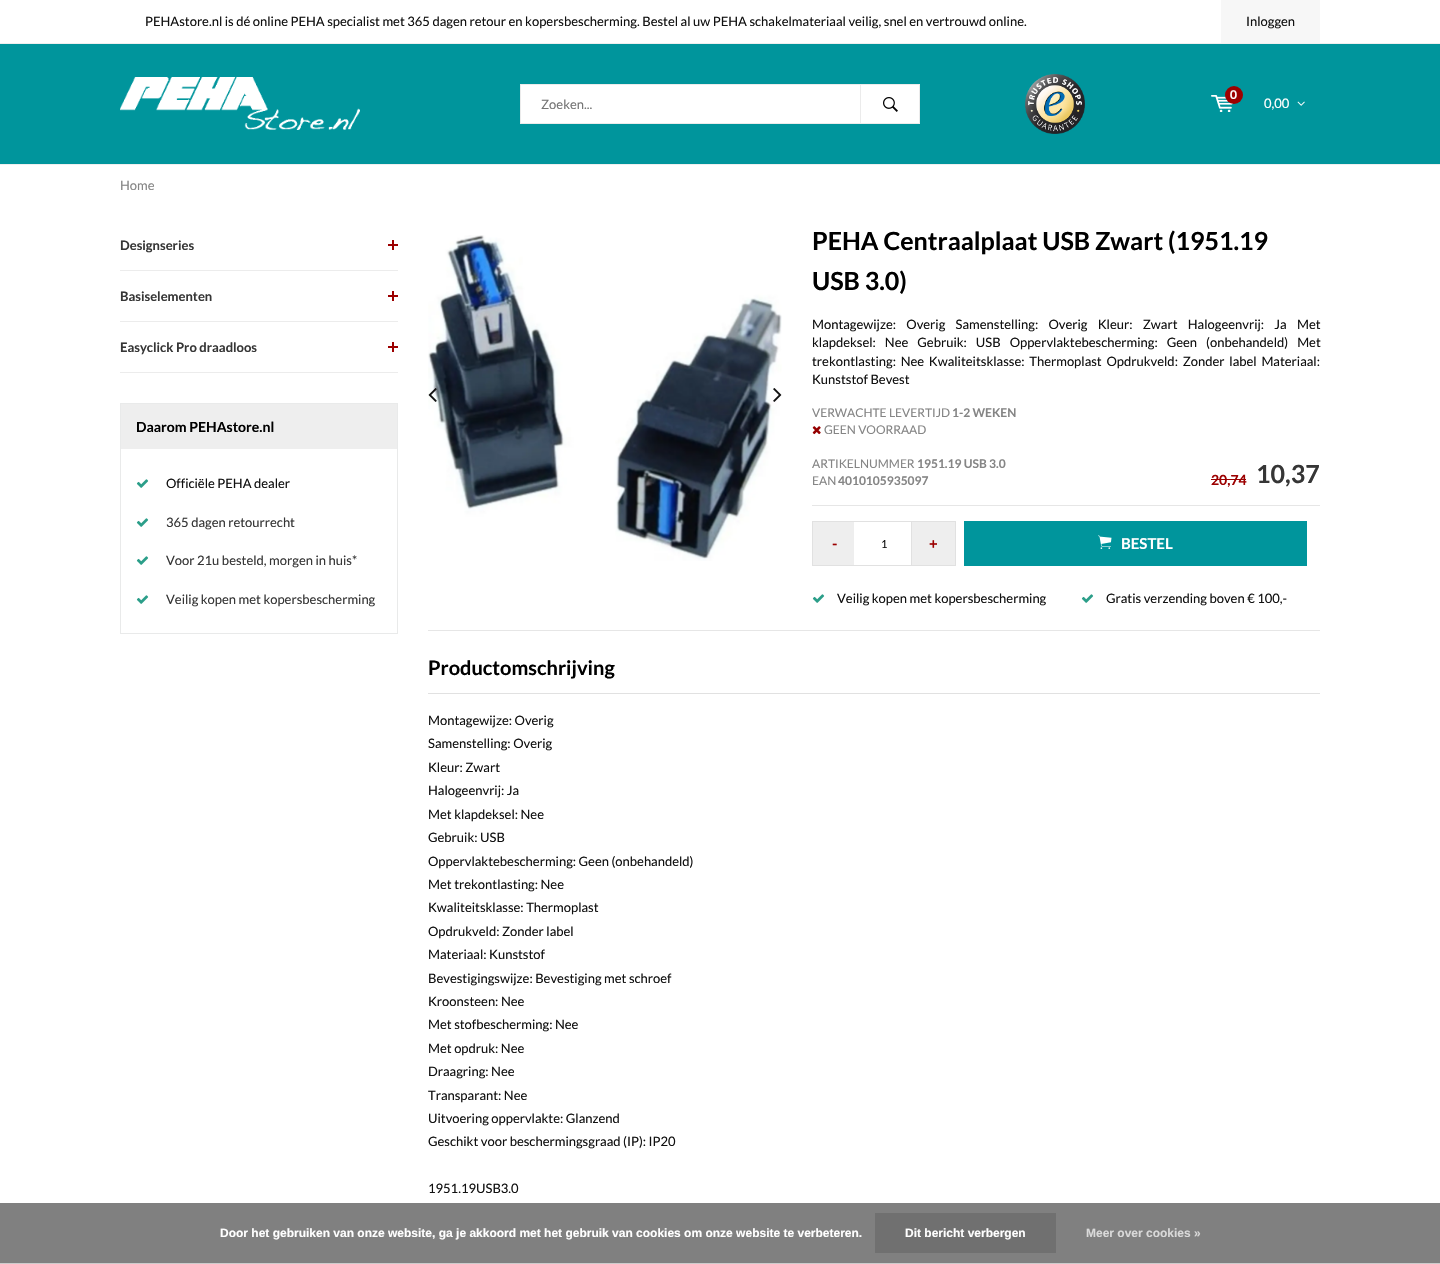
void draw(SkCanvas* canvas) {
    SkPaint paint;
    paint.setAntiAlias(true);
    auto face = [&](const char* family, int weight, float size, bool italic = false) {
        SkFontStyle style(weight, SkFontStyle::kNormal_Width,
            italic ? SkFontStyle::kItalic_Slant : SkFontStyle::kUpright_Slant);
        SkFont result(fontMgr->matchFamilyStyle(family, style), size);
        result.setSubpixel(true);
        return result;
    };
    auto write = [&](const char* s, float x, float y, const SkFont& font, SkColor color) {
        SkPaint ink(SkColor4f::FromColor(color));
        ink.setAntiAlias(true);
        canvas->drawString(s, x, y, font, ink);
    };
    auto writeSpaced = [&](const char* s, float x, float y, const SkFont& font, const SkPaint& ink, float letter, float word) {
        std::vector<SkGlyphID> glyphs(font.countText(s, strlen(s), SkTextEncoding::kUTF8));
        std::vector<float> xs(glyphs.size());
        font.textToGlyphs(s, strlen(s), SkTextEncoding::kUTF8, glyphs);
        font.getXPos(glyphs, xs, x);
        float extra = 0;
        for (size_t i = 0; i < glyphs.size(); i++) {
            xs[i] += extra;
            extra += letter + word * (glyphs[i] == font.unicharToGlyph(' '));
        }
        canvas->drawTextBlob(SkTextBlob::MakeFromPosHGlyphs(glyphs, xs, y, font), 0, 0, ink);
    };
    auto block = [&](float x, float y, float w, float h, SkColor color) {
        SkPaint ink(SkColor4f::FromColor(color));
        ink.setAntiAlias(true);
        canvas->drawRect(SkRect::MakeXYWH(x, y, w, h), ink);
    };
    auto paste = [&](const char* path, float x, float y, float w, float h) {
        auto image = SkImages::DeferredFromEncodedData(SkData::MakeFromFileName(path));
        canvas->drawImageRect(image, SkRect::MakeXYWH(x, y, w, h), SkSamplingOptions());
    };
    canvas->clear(SK_ColorWHITE);
    auto kFont1 = face("Lato", 400, 13);
    write("PEHAstore.nl is dé online PEHA specialist met 365 dagen retour en kopersbescherming. Bestel al uw PEHA schakelmateriaal veilig, snel en vertrouwd online.", 145, 26, kFont1, SkColorSetRGB(17, 17, 17));
    block(1221, 0, 99, 43, SkColorSetRGB(247, 247, 247));
    write("Inloggen", 1246, 26, kFont1, SkColorSetRGB(17, 17, 17));
    block(0, 44, 1440, 120, SkColorSetRGB(0, 149, 156));
    block(0, 43, 1440, 1, SkColorSetRGB(239, 239, 239));
    block(0, 164, 1440, 1, SkColorSetRGB(239, 239, 239));
    paste("pic1.png", 120, 77, 240, 53);
    paint.setColor(SK_ColorWHITE);
    canvas->drawRect(SkRect::MakeXYWH(520.5f, 84.5f, 399, 39), paint);
    paint.setStyle(SkPaint::kStroke_Style);
    paint.setStrokeWidth(1);
    paint.setColor(SkColorSetRGB(235, 235, 235));
    canvas->drawRect(SkRect::MakeXYWH(520.5f, 84.5f, 399, 39), paint);
    write("Zoeken...", 541, 109, kFont1, SkColorSetRGB(117, 117, 117));
    block(860, 84, 1, 40, SkColorSetRGB(235, 235, 235));
    paste("pic2.png", 883, 97, 15, 15);
    paste("pic3.png", 1025, 74, 60, 60);
    paste("pic4.png", 1211, 95, 22, 17);
    paint.setStyle(SkPaint::kFill_Style);
    paint.setColor(SkColorSetRGB(156, 0, 0));
    canvas->drawCircle(1234, 95, 9, paint);
    auto kFont2 = face("Lato", 700, 12);
    write("0", 1230, 99, kFont2, SK_ColorWHITE);
    write("0,00", 1264, 108, kFont1, SK_ColorWHITE);
    paste("pic5.png", 1297, 101, 8, 5);
    write("Home", 120, 190, kFont1, SkColorSetRGB(133, 133, 133));
    block(120, 270, 278, 1, SkColorSetRGB(236, 236, 236));
    auto kFont3 = face("Lato", 700, 13);
    write("Designseries", 120, 250, kFont3, SkColorSetRGB(54, 54, 54));
    block(388, 244, 10, 2, SkColorSetRGB(156, 0, 0));
    block(392, 240, 2, 10, SkColorSetRGB(156, 0, 0));
    block(120, 321, 278, 1, SkColorSetRGB(236, 236, 236));
    write("Basiselementen", 120, 301, kFont3, SkColorSetRGB(54, 54, 54));
    block(388, 295, 10, 2, SkColorSetRGB(156, 0, 0));
    block(392, 291, 2, 10, SkColorSetRGB(156, 0, 0));
    block(120, 372, 278, 1, SkColorSetRGB(236, 236, 236));
    write("Easyclick Pro draadloos", 120, 352, kFont3, SkColorSetRGB(54, 54, 54));
    block(388, 346, 10, 2, SkColorSetRGB(156, 0, 0));
    block(392, 342, 2, 10, SkColorSetRGB(156, 0, 0));
    paint.setStyle(SkPaint::kStroke_Style);
    paint.setColor(SkColorSetRGB(233, 234, 234));
    canvas->drawRect(SkRect::MakeXYWH(120.5f, 403.5f, 277, 230), paint);
    block(121, 404, 276, 45, SkColorSetRGB(238, 238, 238));
    auto kFont4 = face("Lato", 700, 14);
    write("Daarom PEHAstore.nl", 136, 432, kFont4, SK_ColorBLACK);
    paste("pic6.png", 136, 479, 13, 9);
    write("Officiële PEHA dealer", 166, 488, kFont1, SkColorSetRGB(17, 17, 17));
    paste("pic6.png", 136, 518, 13, 9);
    write("365 dagen retourrecht", 166, 527, kFont1, SkColorSetRGB(54, 54, 54));
    paste("pic6.png", 136, 556, 13, 9);
    write("Voor 21u besteld, morgen in huis*", 166, 565, kFont1, SkColorSetRGB(54, 54, 54));
    paste("pic6.png", 136, 595, 13, 9);
    write("Veilig kopen met kopersbescherming", 166, 604, kFont1, SkColorSetRGB(54, 54, 54));
    paste("pic7.png", 428, 235, 354, 326);
    paste("pic8.png", 428, 388, 9, 14);
    paste("pic9.png", 773, 388, 9, 14);
    auto kFont5 = face("Lato", 700, 25);
    write("PEHA Centraalplaat USB Zwart (1951.19", 812, 250, kFont5, SK_ColorBLACK);
    write("USB 3.0)", 812, 290, kFont5, SK_ColorBLACK);
    paint.setStyle(SkPaint::kFill_Style);
    paint.setColor(SkColorSetRGB(17, 17, 17));
    writeSpaced("Montagewijze: Overig Samenstelling: Overig Kleur: Zwart Halogeenvrij: Ja Met", 812, 329, kFont1, paint, 0, 7.75f);
    writeSpaced("klapdeksel: Nee Gebruik: USB Oppervlaktebescherming: Geen (onbehandeld) Met", 812, 347, kFont1, paint, 0, 6.5f);
    writeSpaced("trekontlasting: Nee Kwaliteitsklasse: Thermoplast Opdrukveld: Zonder label Materiaal:", 812, 366, kFont1, paint, 0, 2.25f);
    write("Kunststof Bevest", 812, 384, kFont1, SkColorSetRGB(17, 17, 17));
    block(812, 505, 508, 1, SkColorSetRGB(230, 230, 230));
    auto kFont6 = face("Lato", 400, 12);
    write("VERWACHTE LEVERTIJD", 812, 417, kFont6, SkColorSetRGB(133, 133, 133));
    write("1-2 WEKEN", 952, 417, kFont2, SkColorSetRGB(133, 133, 133));
    paste("pic10.png", 812, 426, 9, 9);
    write("GEEN VOORRAAD", 824, 434, kFont6, SkColorSetRGB(133, 133, 133));
    write("ARTIKELNUMMER", 812, 468, kFont6, SkColorSetRGB(133, 133, 133));
    write("1951.19 USB 3.0", 917, 468, kFont2, SkColorSetRGB(133, 133, 133));
    write("EAN", 812, 485, kFont6, SkColorSetRGB(133, 133, 133));
    write("4010105935097", 838, 485, kFont2, SkColorSetRGB(133, 133, 133));
    write("20,74", 1211, 485, kFont4, SkColorSetRGB(156, 0, 0));
    block(1211, 479, 35, 1, SkColorSetRGB(156, 0, 0));
    write("10,37", 1256, 483, kFont5, SkColorSetRGB(54, 54, 54));
    block(813, 522, 41, 43, SkColorSetRGB(238, 238, 238));
    paint.setStyle(SkPaint::kStroke_Style);
    paint.setColor(SkColorSetRGB(225, 225, 225));
    canvas->drawRect(SkRect::MakeXYWH(812.5f, 521.5f, 44, 44), paint);
    auto kFont7 = face("Lato", 700, 15);
    write("-", 832, 549, kFont7, SkColorSetRGB(156, 0, 0));
    block(856, 522, 1, 43, SK_ColorWHITE);
    block(854, 521, 60, 1, SkColorSetRGB(225, 225, 225));
    block(854, 565, 60, 1, SkColorSetRGB(225, 225, 225));
    auto kFont8 = face("Lato", 400, 11);
    write("1", 881, 548, kFont8, SkColorSetRGB(17, 17, 17));
    paint.setStyle(SkPaint::kFill_Style);
    paint.setColor(SkColorSetRGB(238, 238, 238));
    canvas->drawRect(SkRect::MakeXYWH(911.5f, 521.5f, 44, 44), paint);
    paint.setStyle(SkPaint::kStroke_Style);
    paint.setColor(SkColorSetRGB(225, 225, 225));
    canvas->drawRect(SkRect::MakeXYWH(911.5f, 521.5f, 44, 44), paint);
    write("+", 929, 549, kFont7, SkColorSetRGB(156, 0, 0));
    block(964, 521, 343, 45, SkColorSetRGB(0, 149, 156));
    paste("pic11.png", 1098, 535, 14, 14);
    write("BESTEL", 1121, 549, kFont7, SK_ColorWHITE);
    paste("pic6.png", 812, 594, 13, 9);
    write("Veilig kopen met kopersbescherming", 837, 603, kFont1, SkColorSetRGB(17, 17, 17));
    paste("pic6.png", 1081, 594, 13, 9);
    write("Gratis verzending boven € 100,-", 1106, 603, kFont1, SkColorSetRGB(17, 17, 17));
    block(428, 630, 892, 1, SkColorSetRGB(230, 230, 230));
    block(428, 693, 892, 1, SkColorSetRGB(225, 225, 225));
    auto kFont9 = face("Lato", 700, 20);
    write("Productomschrijving", 428, 675, kFont9, SK_ColorBLACK);
    write("Montagewijze: Overig", 428, 725, kFont1, SkColorSetRGB(17, 17, 17));
    write("Samenstelling: Overig", 428, 748, kFont1, SkColorSetRGB(17, 17, 17));
    write("Kleur: Zwart", 428, 772, kFont1, SkColorSetRGB(17, 17, 17));
    write("Halogeenvrij: Ja", 428, 795, kFont1, SkColorSetRGB(17, 17, 17));
    write("Met klapdeksel: Nee", 428, 819, kFont1, SkColorSetRGB(17, 17, 17));
    write("Gebruik: USB", 428, 842, kFont1, SkColorSetRGB(17, 17, 17));
    write("Oppervlaktebescherming: Geen (onbehandeld)", 428, 866, kFont1, SkColorSetRGB(17, 17, 17));
    write("Met trekontlasting: Nee", 428, 889, kFont1, SkColorSetRGB(17, 17, 17));
    write("Kwaliteitsklasse: Thermoplast", 428, 912, kFont1, SkColorSetRGB(17, 17, 17));
    write("Opdrukveld: Zonder label", 428, 936, kFont1, SkColorSetRGB(17, 17, 17));
    write("Materiaal: Kunststof", 428, 959, kFont1, SkColorSetRGB(17, 17, 17));
    write("Bevestigingswijze: Bevestiging met schroef", 428, 983, kFont1, SkColorSetRGB(17, 17, 17));
    write("Kroonsteen: Nee", 428, 1006, kFont1, SkColorSetRGB(17, 17, 17));
    write("Met stofbescherming: Nee", 428, 1029, kFont1, SkColorSetRGB(17, 17, 17));
    write("Met opdruk: Nee", 428, 1053, kFont1, SkColorSetRGB(17, 17, 17));
    write("Draagring: Nee", 428, 1076, kFont1, SkColorSetRGB(17, 17, 17));
    write("Transparant: Nee", 428, 1100, kFont1, SkColorSetRGB(17, 17, 17));
    write("Uitvoering oppervlakte: Glanzend", 428, 1123, kFont1, SkColorSetRGB(17, 17, 17));
    write("Geschikt voor beschermingsgraad (IP): IP20", 428, 1146, kFont1, SkColorSetRGB(17, 17, 17));
    write("1951.19USB3.0", 428, 1193, kFont1, SkColorSetRGB(17, 17, 17));
    block(0, 1203, 1440, 60, SkColorSetRGB(128, 128, 128));
    block(0, 1263, 1440, 1, SkColorSetRGB(204, 204, 204));
    auto kFont10 = face("Liberation Sans", 700, 12);
    write("Door het gebruiken van onze website, ga je akkoord met het gebruik van cookies om onze website te verbeteren.", 220, 1237, kFont10, SK_ColorWHITE);
    block(875, 1213, 181, 40, SkColorSetRGB(112, 112, 112));
    write("Dit bericht verbergen", 905, 1237, kFont10, SK_ColorWHITE);
    write("Meer over cookies »", 1086, 1237, kFont10, SkColorSetRGB(217, 217, 217));
}
